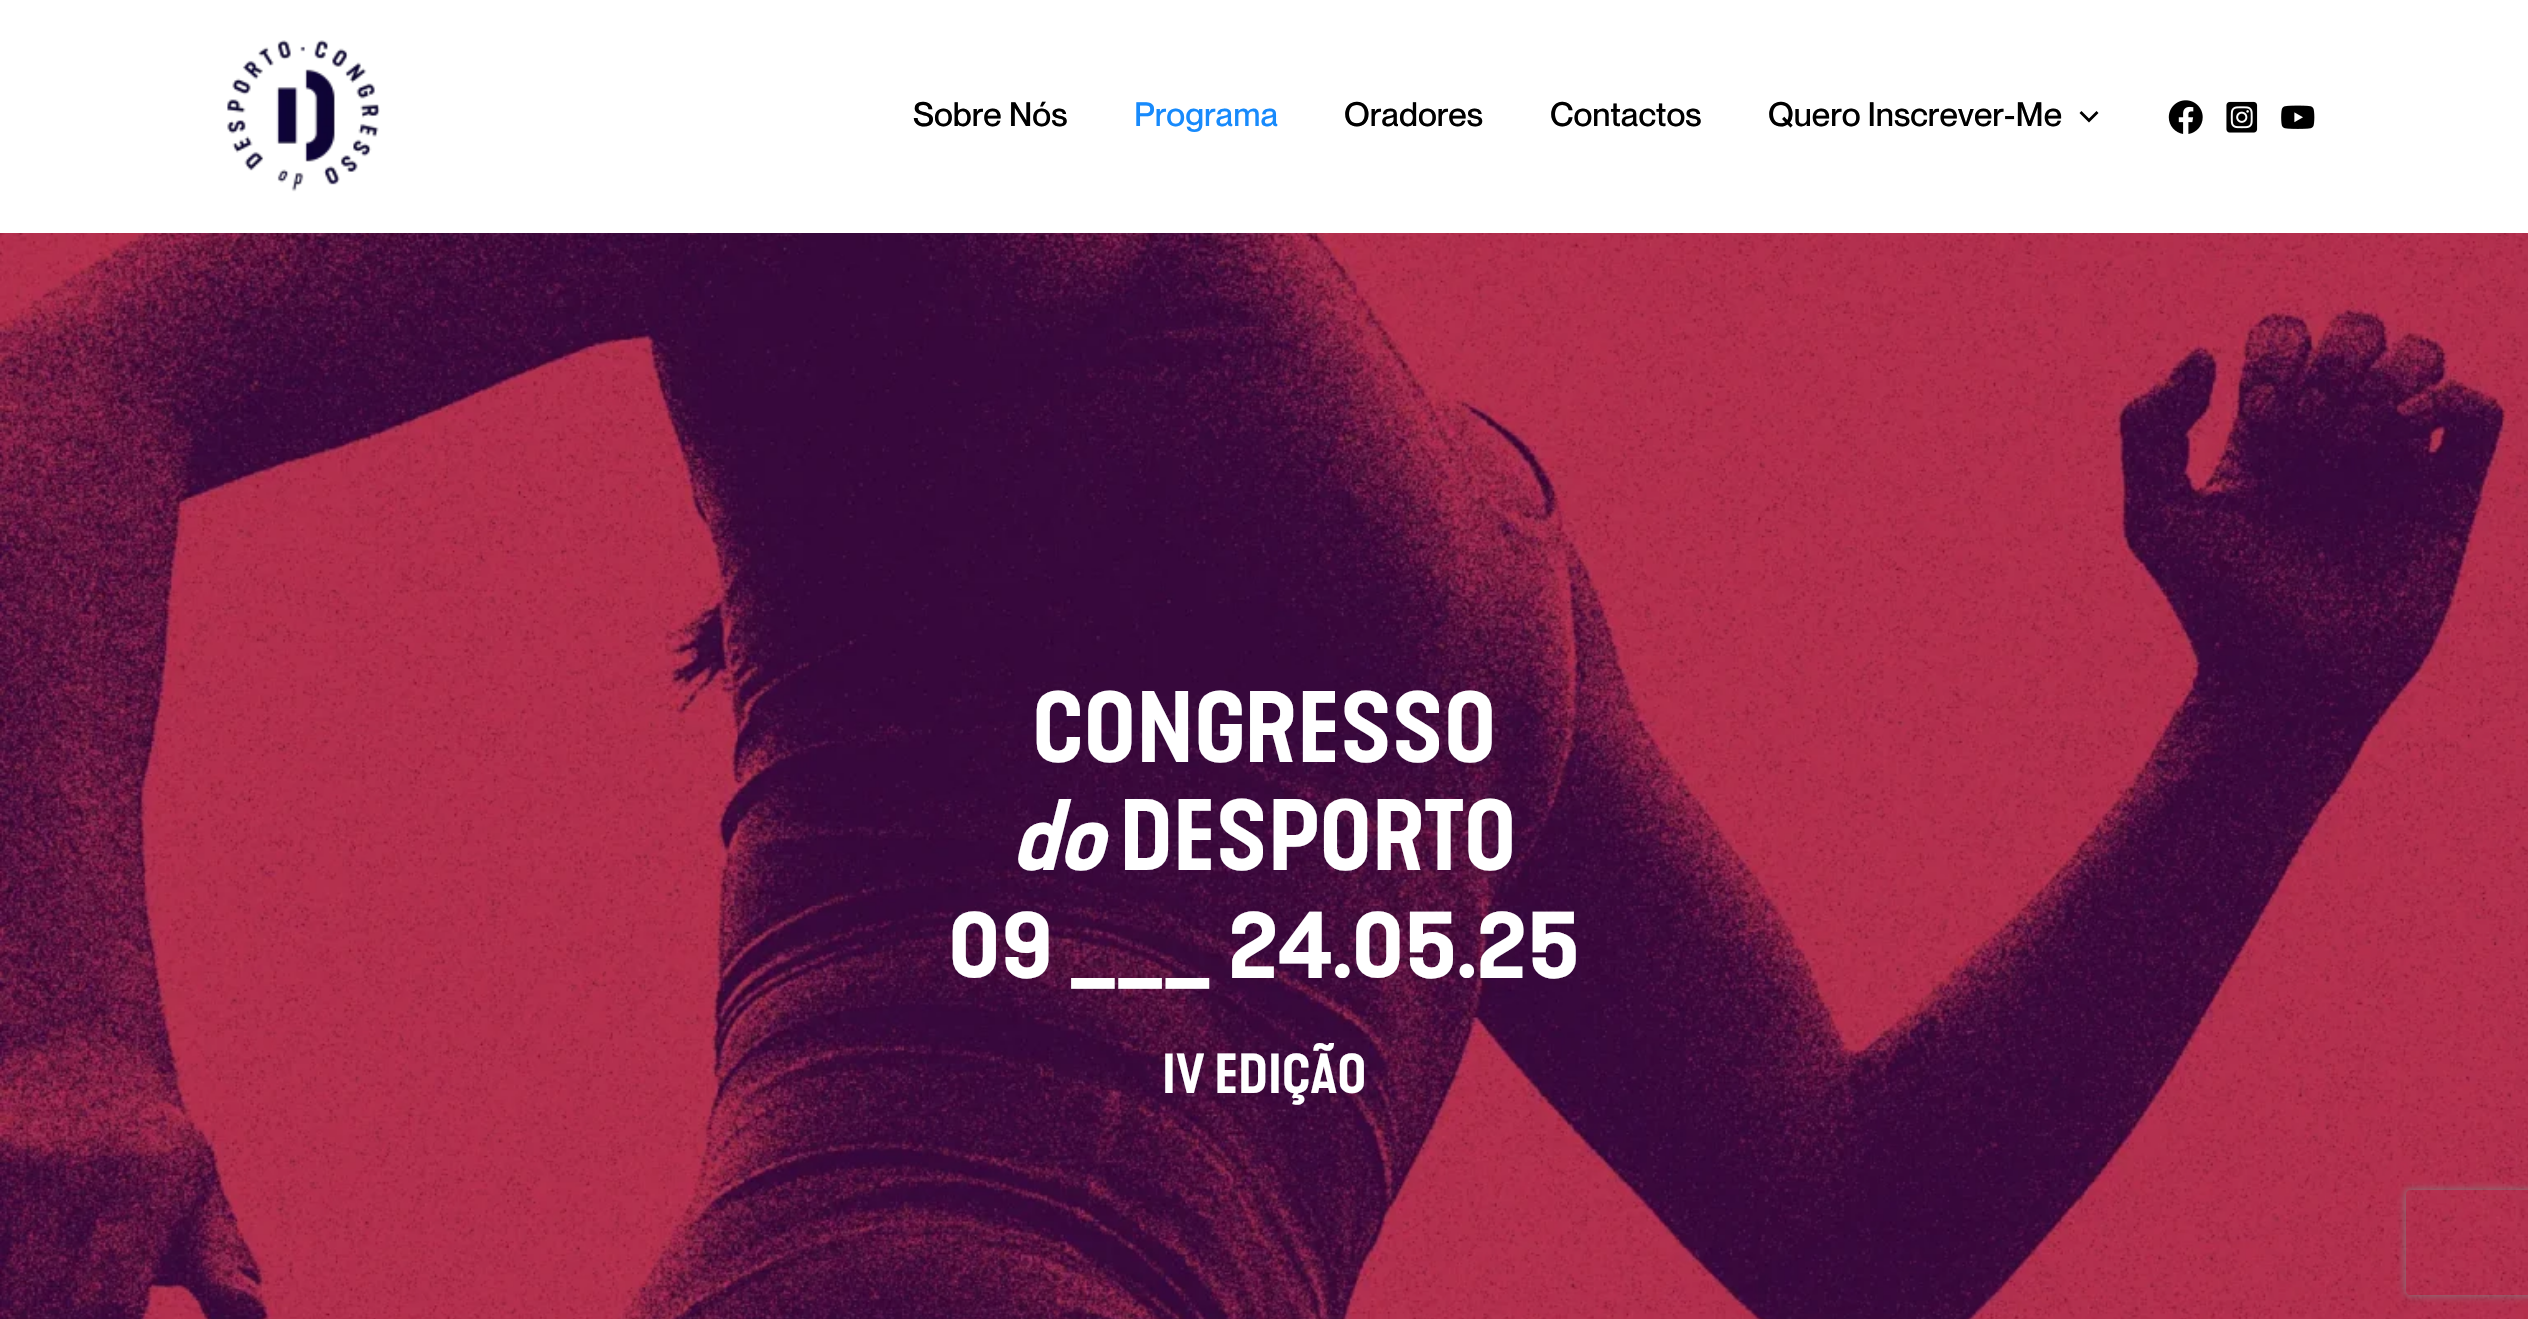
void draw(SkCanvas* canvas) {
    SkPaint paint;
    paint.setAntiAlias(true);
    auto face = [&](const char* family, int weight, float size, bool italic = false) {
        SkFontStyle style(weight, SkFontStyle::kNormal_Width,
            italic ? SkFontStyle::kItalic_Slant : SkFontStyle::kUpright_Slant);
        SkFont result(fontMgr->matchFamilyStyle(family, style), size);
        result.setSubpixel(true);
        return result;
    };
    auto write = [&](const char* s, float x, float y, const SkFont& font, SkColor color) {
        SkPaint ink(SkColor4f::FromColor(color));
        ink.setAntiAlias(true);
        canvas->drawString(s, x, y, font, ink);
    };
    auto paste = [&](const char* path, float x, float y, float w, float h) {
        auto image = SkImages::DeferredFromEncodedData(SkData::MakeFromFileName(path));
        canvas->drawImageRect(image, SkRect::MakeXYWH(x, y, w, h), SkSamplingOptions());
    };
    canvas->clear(SK_ColorWHITE);
    paste("pic1.png", 227, 40, 153, 152);
    auto kFont1 = face("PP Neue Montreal", 500, 33.25f);
    write("Sobre Nós", 913, 126, kFont1, SK_ColorBLACK);
    write("Programa", 1134, 126, kFont1, SkColorSetRGB(23, 138, 252));
    write("Oradores", 1344, 126, kFont1, SK_ColorBLACK);
    write("Contactos", 1550, 126, kFont1, SK_ColorBLACK);
    write("Quero Inscrever-Me", 1768, 126, kFont1, SK_ColorBLACK);
    paint.setColor(SK_ColorBLACK);
    canvas->drawPath(SkPathBuilder().moveTo(2079.5f, 113).lineTo(2089, 122.5f).lineTo(2098.5f, 113).lineTo(2096.5f, 111).lineTo(2089, 118.5f).lineTo(2081.5f, 111).close().detach(), paint);
    paste("pic2.png", 2168, 100, 35, 34);
    paste("pic3.png", 2226, 101, 32, 32);
    paste("pic4.png", 2281, 105, 34, 24);
    paste("pic5.png", 0, 233, 2528, 1086);
    auto kFont2 = face("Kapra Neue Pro", 600, 94.5f);
    write("CONGRESSO", 1032, 762, kFont2, SK_ColorWHITE);
    auto kFont3 = face("Kapra Neue Pro", 600, 94.5f, true);
    write("do", 1012, 870, kFont3, SK_ColorWHITE);
    write("DESPORTO", 1119, 870, kFont2, SK_ColorWHITE);
    write("09 ___ 24.05.25", 948, 978, kFont2, SK_ColorWHITE);
    auto kFont4 = face("Kapra Neue Pro", 600, 52.5f);
    write("IV EDIÇÃO", 1162, 1093, kFont4, SK_ColorWHITE);
    canvas->save();
    canvas->clipPath(SkPathBuilder(SkPathFillType::kEvenOdd).moveTo(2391, 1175).lineTo(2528, 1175).lineTo(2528, 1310).lineTo(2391, 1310).close().moveTo(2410, 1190).lineTo(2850, 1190).cubicTo(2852, 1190, 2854, 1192, 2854, 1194).lineTo(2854, 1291).cubicTo(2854, 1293, 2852, 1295, 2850, 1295).lineTo(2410, 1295).cubicTo(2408, 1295, 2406, 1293, 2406, 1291).lineTo(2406, 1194).cubicTo(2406, 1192, 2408, 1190, 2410, 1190).close().detach(), true);
    paint.setColor(SkColorSetRGB(128, 128, 128));
    paint.setMaskFilter(SkMaskFilter::MakeBlur(kNormal_SkBlurStyle, 4.5f));
    canvas->drawRoundRect(SkRect::MakeXYWH(2406, 1190, 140, 105), 4, 4, paint);
    paint.setMaskFilter(nullptr);
    canvas->restore();
}
